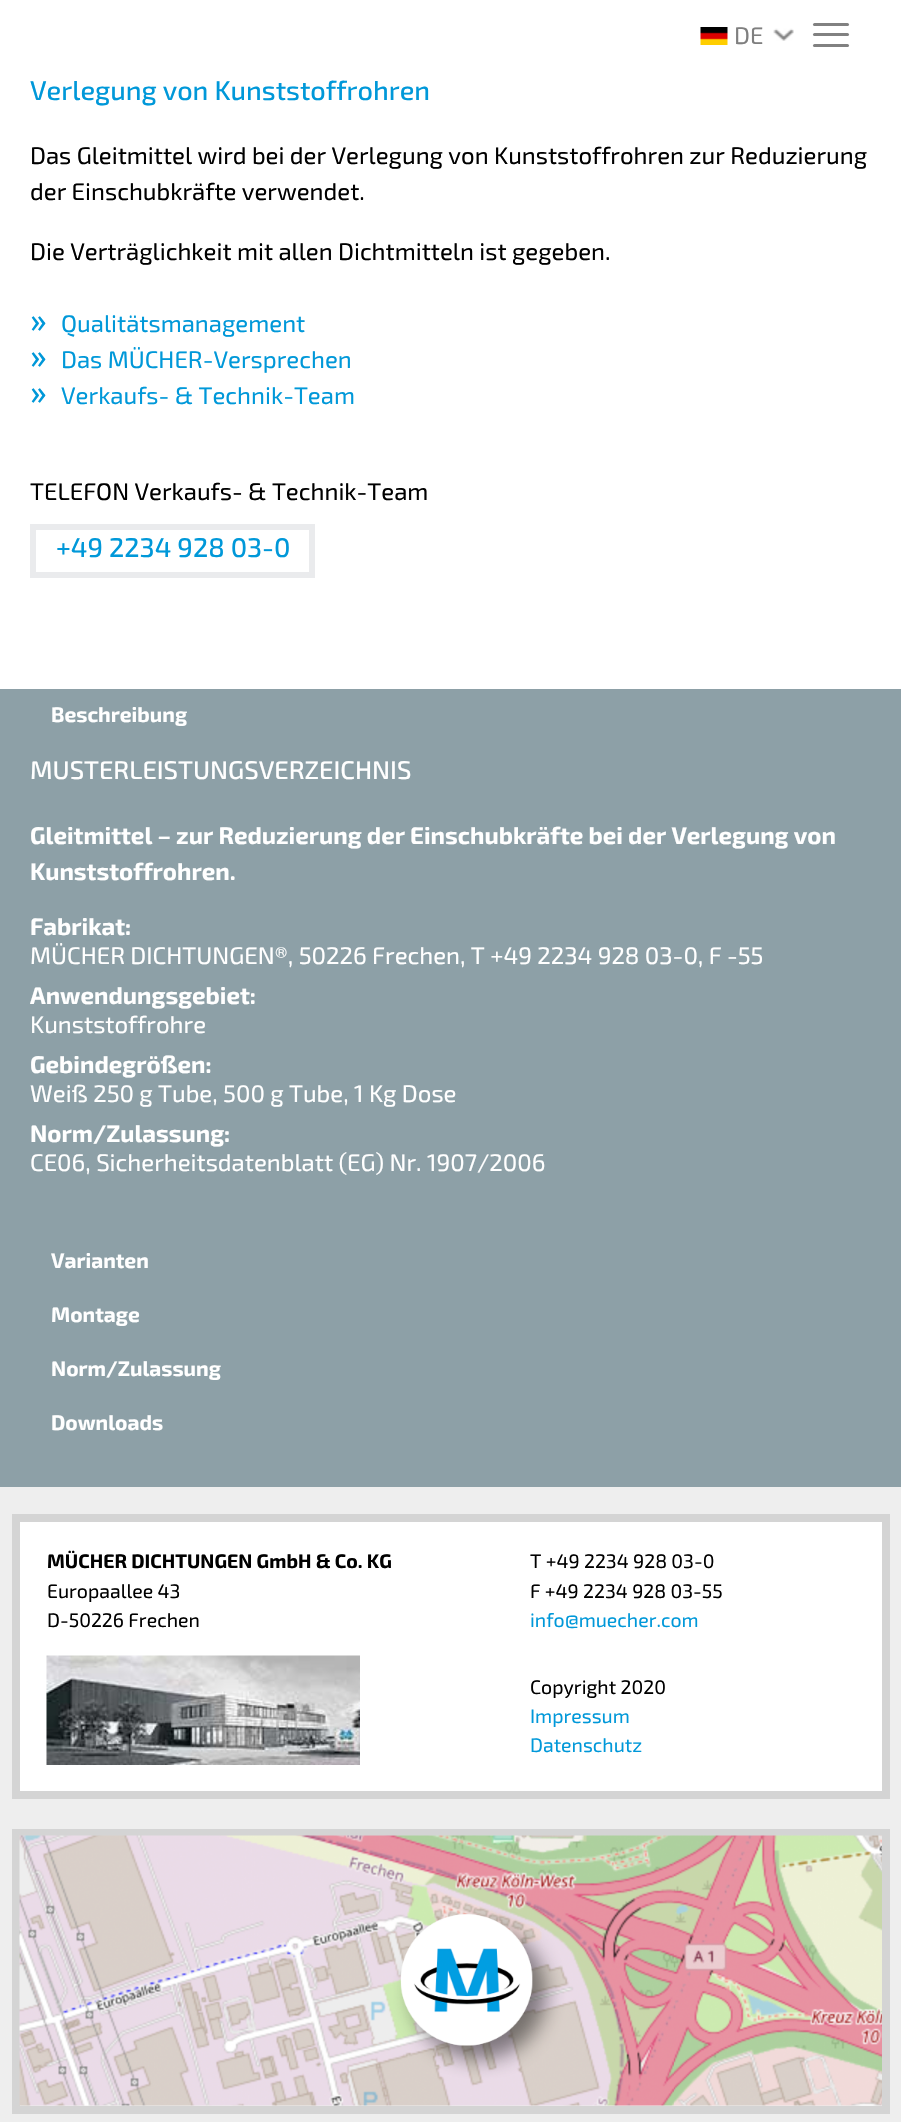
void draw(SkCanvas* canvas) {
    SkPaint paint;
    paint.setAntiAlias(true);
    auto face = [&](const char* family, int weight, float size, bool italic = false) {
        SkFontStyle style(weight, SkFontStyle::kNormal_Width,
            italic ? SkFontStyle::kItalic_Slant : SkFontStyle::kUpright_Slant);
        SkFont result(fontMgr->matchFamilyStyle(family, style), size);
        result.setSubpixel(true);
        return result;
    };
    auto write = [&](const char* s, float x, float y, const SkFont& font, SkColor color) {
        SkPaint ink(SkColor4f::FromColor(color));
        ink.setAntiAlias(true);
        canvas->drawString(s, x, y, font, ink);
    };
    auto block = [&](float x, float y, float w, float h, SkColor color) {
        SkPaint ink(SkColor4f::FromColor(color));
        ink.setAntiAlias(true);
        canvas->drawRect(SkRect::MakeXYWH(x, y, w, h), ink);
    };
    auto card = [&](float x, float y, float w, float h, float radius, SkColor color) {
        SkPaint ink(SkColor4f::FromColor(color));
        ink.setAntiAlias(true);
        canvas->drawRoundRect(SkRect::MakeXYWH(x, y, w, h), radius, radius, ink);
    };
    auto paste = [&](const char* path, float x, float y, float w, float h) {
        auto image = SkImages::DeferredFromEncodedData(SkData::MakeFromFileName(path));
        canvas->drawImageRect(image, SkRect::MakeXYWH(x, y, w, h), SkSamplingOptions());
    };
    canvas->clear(SK_ColorWHITE);
    paste("pic1.png", 700, 27, 28, 18);
    auto kFont1 = face("Exo 2", 400, 24);
    write("DE", 734, 44, kFont1, SkColorSetRGB(127, 127, 127));
    paste("pic2.png", 773, 28, 21, 13);
    card(813, 23, 36, 3, 1.5f, SkColorSetRGB(129, 129, 129));
    card(813, 33, 36, 3, 1.5f, SkColorSetRGB(129, 129, 129));
    card(813, 44, 36, 3, 1.5f, SkColorSetRGB(129, 129, 129));
    auto kFont2 = face("Exo 2", 500, 27);
    write("Verlegung von Kunststoffrohren", 30, 100, kFont2, SkColorSetRGB(0, 152, 217));
    write("Das Gleitmittel wird bei der Verlegung von Kunststoffrohren zur Reduzierung", 30, 164, kFont1, SK_ColorBLACK);
    write("der Einschubkräfte verwendet.", 30, 200, kFont1, SK_ColorBLACK);
    write("Die Verträglichkeit mit allen Dichtmitteln ist gegeben.", 30, 260, kFont1, SK_ColorBLACK);
    auto kFont3 = face("Exo 2", 500, 34);
    write("»", 30, 332, kFont3, SkColorSetRGB(0, 152, 217));
    write("Qualitätsmanagement", 61, 332, kFont1, SkColorSetRGB(0, 152, 217));
    write("»", 30, 368, kFont3, SkColorSetRGB(0, 152, 217));
    write("Das MÜCHER-Versprechen", 61, 368, kFont1, SkColorSetRGB(0, 152, 217));
    write("»", 30, 404, kFont3, SkColorSetRGB(0, 152, 217));
    write("Verkaufs- & Technik-Team", 61, 404, kFont1, SkColorSetRGB(0, 152, 217));
    write("TELEFON Verkaufs- & Technik-Team", 30, 500, kFont1, SK_ColorBLACK);
    paint.setStyle(SkPaint::kStroke_Style);
    paint.setStrokeWidth(6);
    paint.setColor(SkColorSetRGB(234, 235, 237));
    canvas->drawRect(SkRect::MakeXYWH(33, 527, 279, 48), paint);
    write("+49 2234 928 03-0", 56, 557, kFont2, SkColorSetRGB(0, 152, 217));
    block(0, 689, 901, 798, SkColorSetRGB(141, 160, 167));
    auto kFont4 = face("Exo 2", 700, 21);
    write("Beschreibung", 51, 722, kFont4, SK_ColorWHITE);
    auto kFont5 = face("Exo 2", 500, 25.5f);
    write("MUSTERLEISTUNGSVERZEICHNIS", 30, 779, kFont5, SK_ColorWHITE);
    auto kFont6 = face("Exo 2", 700, 24);
    write("Gleitmittel – zur Reduzierung der Einschubkräfte bei der Verlegung von", 30, 844, kFont6, SK_ColorWHITE);
    write("Kunststoffrohren.", 30, 880, kFont6, SK_ColorWHITE);
    write("Fabrikat:", 30, 935, kFont6, SK_ColorWHITE);
    write("MÜCHER DICHTUNGEN®, 50226 Frechen, T +49 2234 928 03-0, F -55", 30, 964, kFont1, SK_ColorWHITE);
    write("Anwendungsgebiet:", 30, 1004, kFont6, SK_ColorWHITE);
    write("Kunststoffrohre", 30, 1033, kFont1, SK_ColorWHITE);
    write("Gebindegrößen:", 30, 1073, kFont6, SK_ColorWHITE);
    write("Weiß 250 g Tube, 500 g Tube, 1 Kg Dose", 30, 1102, kFont1, SK_ColorWHITE);
    write("Norm/Zulassung:", 30, 1142, kFont6, SK_ColorWHITE);
    write("CE06, Sicherheitsdatenblatt (EG) Nr. 1907/2006", 30, 1171, kFont1, SK_ColorWHITE);
    write("Varianten", 51, 1268, kFont4, SK_ColorWHITE);
    write("Montage", 51, 1322, kFont4, SK_ColorWHITE);
    write("Norm/Zulassung", 51, 1376, kFont4, SK_ColorWHITE);
    write("Downloads", 51, 1430, kFont4, SK_ColorWHITE);
    block(0, 1487, 901, 635, SkColorSetRGB(238, 238, 238));
    paint.setStyle(SkPaint::kFill_Style);
    paint.setColor(SK_ColorWHITE);
    canvas->drawRect(SkRect::MakeXYWH(16, 1518, 870, 277), paint);
    paint.setStyle(SkPaint::kStroke_Style);
    paint.setStrokeWidth(8);
    paint.setColor(SkColorSetRGB(212, 212, 212));
    canvas->drawRect(SkRect::MakeXYWH(16, 1518, 870, 277), paint);
    auto kFont7 = face("Exo 2", 700, 19.5f);
    write("MÜCHER DICHTUNGEN GmbH & Co. KG", 47, 1568, kFont7, SK_ColorBLACK);
    auto kFont8 = face("Exo 2", 400, 19.5f);
    write("Europaallee 43", 47, 1598, kFont8, SK_ColorBLACK);
    write("D-50226 Frechen", 47, 1627, kFont8, SK_ColorBLACK);
    paste("pic3.png", 46, 1655, 314, 110);
    write("T +49 2234 928 03-0", 530, 1568, kFont8, SK_ColorBLACK);
    write("F +49 2234 928 03-55", 530, 1598, kFont8, SK_ColorBLACK);
    write("info@muecher.com", 530, 1627, kFont8, SkColorSetRGB(0, 152, 217));
    write("Copyright 2020", 530, 1694, kFont8, SK_ColorBLACK);
    write("Impressum", 530, 1723, kFont8, SkColorSetRGB(0, 152, 217));
    write("Datenschutz", 530, 1752, kFont8, SkColorSetRGB(0, 152, 217));
    canvas->drawRect(SkRect::MakeXYWH(16, 1833, 870, 277), paint);
    paste("pic4.png", 19, 1835, 863, 271);
}
